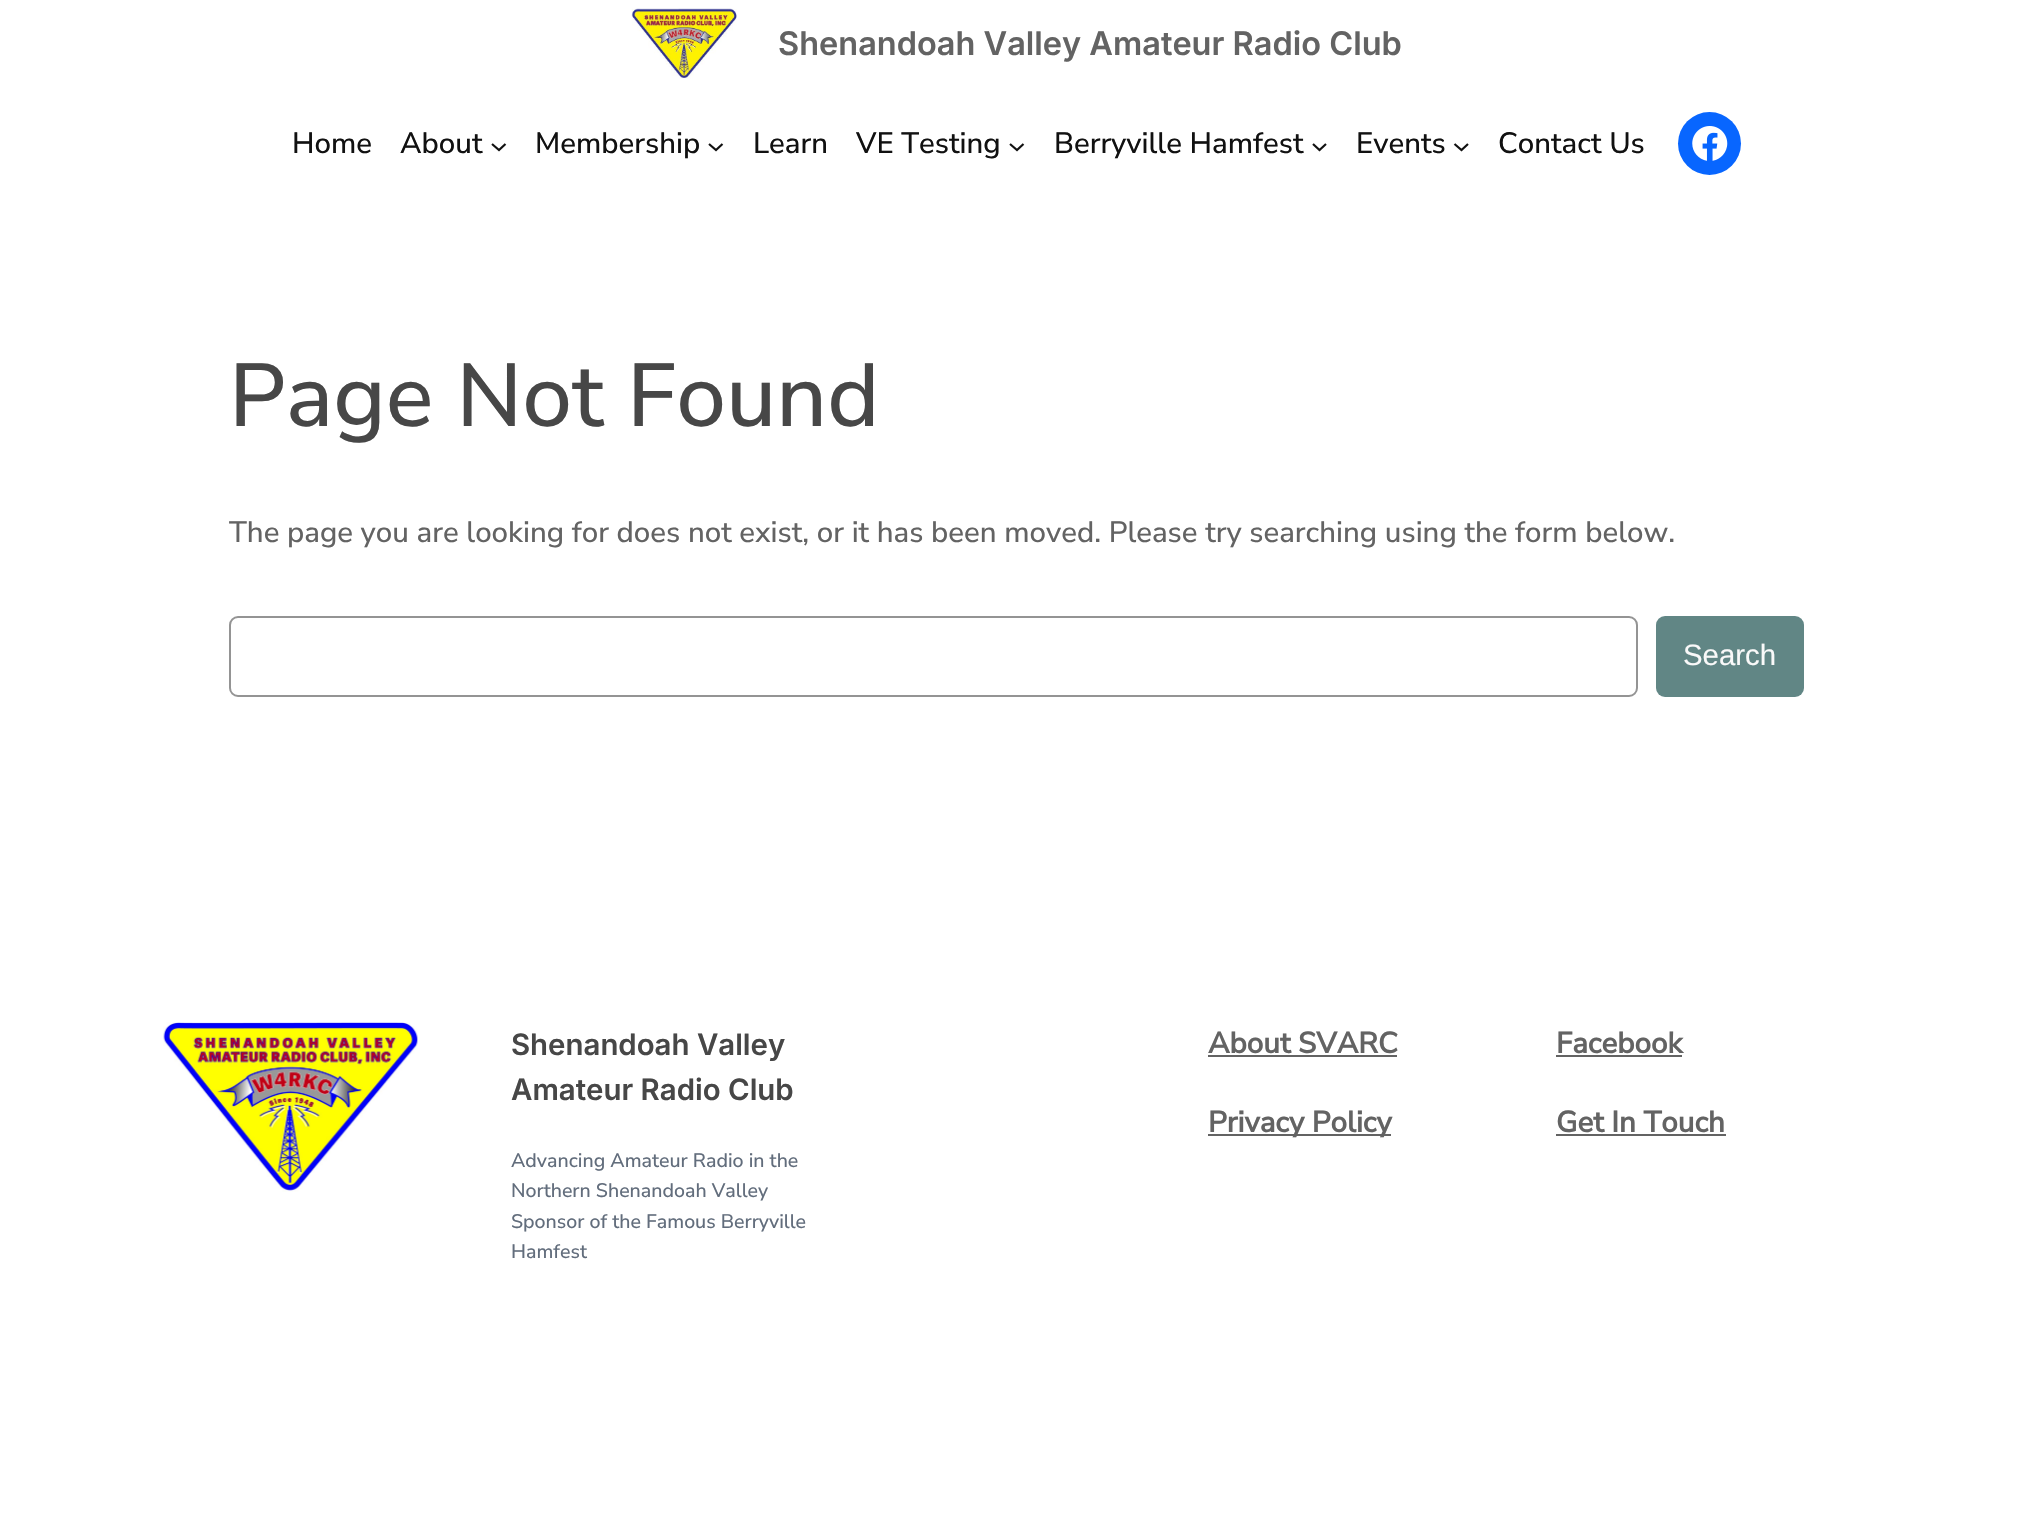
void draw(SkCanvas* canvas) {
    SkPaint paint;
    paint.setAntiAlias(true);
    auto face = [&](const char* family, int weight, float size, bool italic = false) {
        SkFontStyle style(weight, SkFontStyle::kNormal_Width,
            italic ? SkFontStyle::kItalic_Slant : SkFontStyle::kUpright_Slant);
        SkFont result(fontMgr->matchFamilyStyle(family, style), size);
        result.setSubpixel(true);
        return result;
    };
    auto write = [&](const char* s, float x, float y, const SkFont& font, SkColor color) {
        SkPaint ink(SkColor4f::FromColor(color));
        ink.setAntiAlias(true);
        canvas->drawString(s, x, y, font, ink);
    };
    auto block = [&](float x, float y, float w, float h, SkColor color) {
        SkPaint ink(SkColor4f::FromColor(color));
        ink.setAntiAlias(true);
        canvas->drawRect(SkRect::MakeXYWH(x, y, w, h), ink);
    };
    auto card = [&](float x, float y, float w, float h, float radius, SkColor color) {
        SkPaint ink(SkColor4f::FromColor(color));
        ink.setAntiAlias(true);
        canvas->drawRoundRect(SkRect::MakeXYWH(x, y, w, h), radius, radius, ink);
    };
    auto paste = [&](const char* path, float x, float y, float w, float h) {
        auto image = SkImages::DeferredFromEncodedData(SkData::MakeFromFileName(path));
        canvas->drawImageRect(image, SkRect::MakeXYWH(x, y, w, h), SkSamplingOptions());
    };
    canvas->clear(SK_ColorWHITE);
    paste("pic1.png", 631, 8, 106, 71);
    auto kFont1 = face("Inter", 600, 32.5f);
    write("Shenandoah Valley Amateur Radio Club", 778, 55, kFont1, SkColorSetRGB(99, 99, 99));
    auto kFont2 = face("Nunito Sans", 500, 29.4f);
    write("Home", 292, 153, kFont2, SkColorSetRGB(17, 17, 17));
    write("About", 400, 153, kFont2, SkColorSetRGB(17, 17, 17));
    paint.setStyle(SkPaint::kStroke_Style);
    paint.setStrokeWidth(2.2f);
    paint.setColor(SkColorSetRGB(17, 17, 17));
    canvas->drawPath(SkPathBuilder().moveTo(492, 144).lineTo(499, 150).lineTo(505.5f, 144).detach(), paint);
    write("Membership", 535, 153, kFont2, SkColorSetRGB(17, 17, 17));
    canvas->drawPath(SkPathBuilder().moveTo(709, 144).lineTo(716, 150).lineTo(722.5f, 144).detach(), paint);
    write("Learn", 753, 153, kFont2, SkColorSetRGB(17, 17, 17));
    write("VE Testing", 856, 153, kFont2, SkColorSetRGB(17, 17, 17));
    canvas->drawPath(SkPathBuilder().moveTo(1010, 144).lineTo(1017, 150).lineTo(1023.5f, 144).detach(), paint);
    write("Berryville Hamfest", 1054, 153, kFont2, SkColorSetRGB(17, 17, 17));
    canvas->drawPath(SkPathBuilder().moveTo(1313, 144).lineTo(1319.5f, 150).lineTo(1326, 144).detach(), paint);
    write("Events", 1356, 153, kFont2, SkColorSetRGB(17, 17, 17));
    canvas->drawPath(SkPathBuilder().moveTo(1454.5f, 144).lineTo(1461.5f, 150).lineTo(1468, 144).detach(), paint);
    write("Contact Us", 1498, 153, kFont2, SkColorSetRGB(17, 17, 17));
    paint.setStyle(SkPaint::kFill_Style);
    paint.setColor(SkColorSetRGB(8, 102, 255));
    canvas->drawCircle(1709.5f, 143.5f, 31.5f, paint);
    paste("pic2.png", 1692, 126, 36, 35);
    auto kFont3 = face("Nunito Sans", 500, 89);
    write("Page Not Found", 229, 426, kFont3, SkColorSetRGB(71, 71, 71));
    write("The page you are looking for does not exist, or it has been moved. Please try searching using the form below.", 229, 542, kFont2, SkColorSetRGB(99, 99, 99));
    paint.setStyle(SkPaint::kStroke_Style);
    paint.setStrokeWidth(2);
    paint.setColor(SkColorSetRGB(148, 148, 148));
    canvas->drawRoundRect(SkRect::MakeXYWH(230, 617, 1407, 79), 8, 8, paint);
    card(1656, 616, 148, 81, 9, SkColorSetRGB(97, 134, 133));
    auto kFont4 = face("Liberation Sans", 400, 29.4f);
    write("Search", 1683, 665, kFont4, SkColorSetRGB(249, 249, 249));
    paste("pic3.png", 163, 1022, 255, 170);
    auto kFont5 = face("Inter", 600, 29.4f);
    write("Shenandoah Valley", 511, 1055, kFont5, SkColorSetRGB(71, 71, 71));
    write("Amateur Radio Club", 511, 1100, kFont5, SkColorSetRGB(71, 71, 71));
    auto kFont6 = face("Nunito Sans", 500, 19.6f);
    write("Advancing Amateur Radio in the", 511, 1167, kFont6, SkColorSetRGB(98, 109, 124));
    write("Northern Shenandoah Valley", 511, 1197, kFont6, SkColorSetRGB(98, 109, 124));
    write("Sponsor of the Famous Berryville", 511, 1228, kFont6, SkColorSetRGB(98, 109, 124));
    write("Hamfest", 511, 1258, kFont6, SkColorSetRGB(98, 109, 124));
    auto kFont7 = face("Nunito Sans", 700, 29.4f);
    write("About SVARC", 1208, 1053, kFont7, SkColorSetRGB(99, 99, 99));
    block(1208, 1055, 189, 2, SkColorSetRGB(99, 99, 99));
    block(1208, 1134, 183, 2, SkColorSetRGB(99, 99, 99));
    write("Privacy Policy", 1208, 1132, kFont7, SkColorSetRGB(99, 99, 99));
    write("Facebook", 1556, 1053, kFont7, SkColorSetRGB(99, 99, 99));
    block(1556, 1055, 126, 2, SkColorSetRGB(99, 99, 99));
    write("Get In Touch", 1556, 1132, kFont7, SkColorSetRGB(99, 99, 99));
    block(1556, 1134, 170, 2, SkColorSetRGB(99, 99, 99));
}
